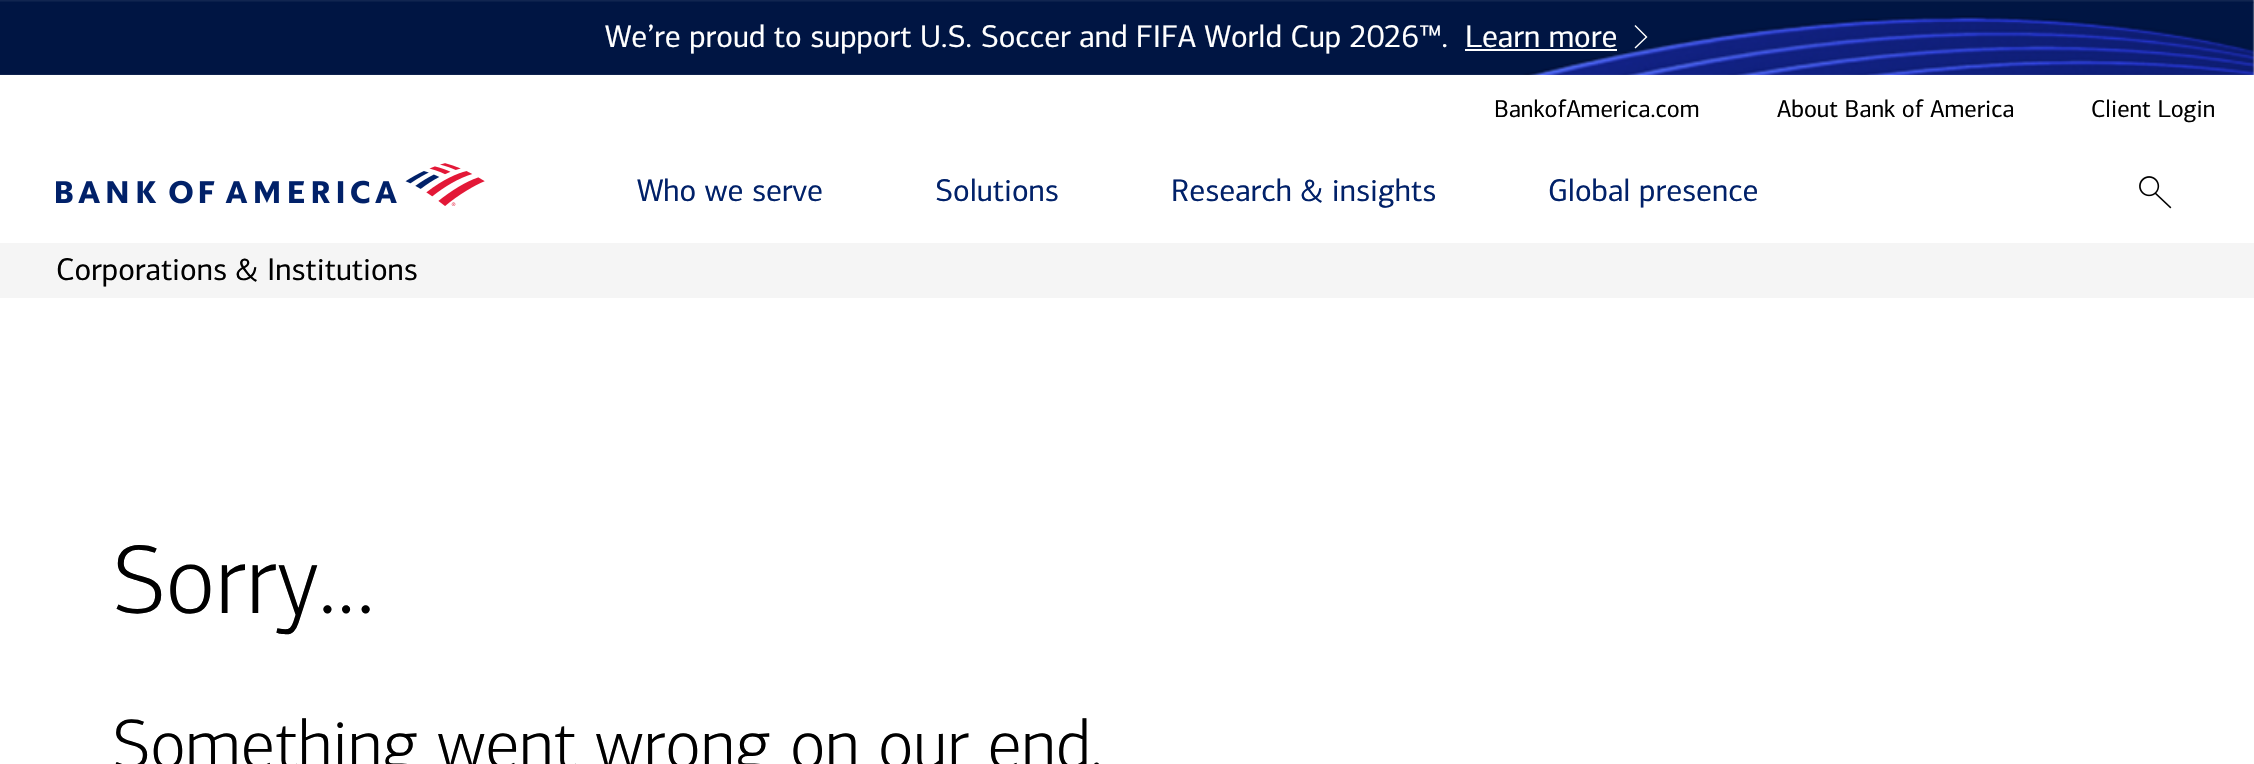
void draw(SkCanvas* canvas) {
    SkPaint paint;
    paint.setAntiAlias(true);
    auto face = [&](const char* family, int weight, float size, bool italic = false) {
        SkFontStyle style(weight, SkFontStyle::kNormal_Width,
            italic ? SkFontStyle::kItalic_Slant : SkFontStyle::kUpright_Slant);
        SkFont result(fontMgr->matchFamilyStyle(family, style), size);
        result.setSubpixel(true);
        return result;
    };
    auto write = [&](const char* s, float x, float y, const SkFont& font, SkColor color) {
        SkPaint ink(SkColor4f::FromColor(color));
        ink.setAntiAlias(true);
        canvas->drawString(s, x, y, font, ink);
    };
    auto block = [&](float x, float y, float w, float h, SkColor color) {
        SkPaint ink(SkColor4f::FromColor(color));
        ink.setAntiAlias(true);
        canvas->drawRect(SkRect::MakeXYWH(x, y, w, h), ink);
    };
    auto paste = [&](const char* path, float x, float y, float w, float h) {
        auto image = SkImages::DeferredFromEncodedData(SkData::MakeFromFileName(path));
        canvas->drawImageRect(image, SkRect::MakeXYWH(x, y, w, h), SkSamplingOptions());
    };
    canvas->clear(SK_ColorWHITE);
    paste("pic1.png", 0, 0, 2254, 75);
    auto kFont1 = face("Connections", 400, 31.5f);
    write("We’re proud to support U.S. Soccer and FIFA World Cup 2026™.", 605, 47, kFont1, SK_ColorWHITE);
    write("Learn more", 1465, 47, kFont1, SK_ColorWHITE);
    block(1465, 49, 152, 2, SK_ColorWHITE);
    paint.setColor(SK_ColorWHITE);
    canvas->drawPath(SkPathBuilder().moveTo(1635.5f, 25).lineTo(1634.5f, 26).lineTo(1645.5f, 37).lineTo(1634.5f, 47.5f).lineTo(1635.5f, 48.5f).lineTo(1647.5f, 37).close().detach(), paint);
    auto kFont2 = face("Connections", 400, 24.5f);
    write("BankofAmerica.com", 1494, 117, kFont2, SK_ColorBLACK);
    write("About Bank of America", 1777, 117, kFont2, SK_ColorBLACK);
    write("Client Login", 2091, 117, kFont2, SK_ColorBLACK);
    paste("pic2.png", 56, 163, 429, 43);
    write("Who we serve", 637, 201, kFont1, SkColorSetRGB(1, 33, 105));
    write("Solutions", 935, 201, kFont1, SkColorSetRGB(1, 33, 105));
    write("Research & insights", 1171, 201, kFont1, SkColorSetRGB(1, 33, 105));
    write("Global presence", 1548, 201, kFont1, SkColorSetRGB(1, 33, 105));
    paste("pic3.png", 2139, 176, 33, 33);
    block(0, 243, 2254, 55, SkColorSetRGB(245, 245, 245));
    write("Corporations & Institutions", 56, 280, kFont1, SK_ColorBLACK);
    auto kFont3 = face("Connections", 300, 98);
    write("Sorry…", 112, 613, kFont3, SK_ColorBLACK);
    auto kFont4 = face("Connections", 300, 70);
    write("Something went wrong on our end.", 112, 768, kFont4, SK_ColorBLACK);
}
